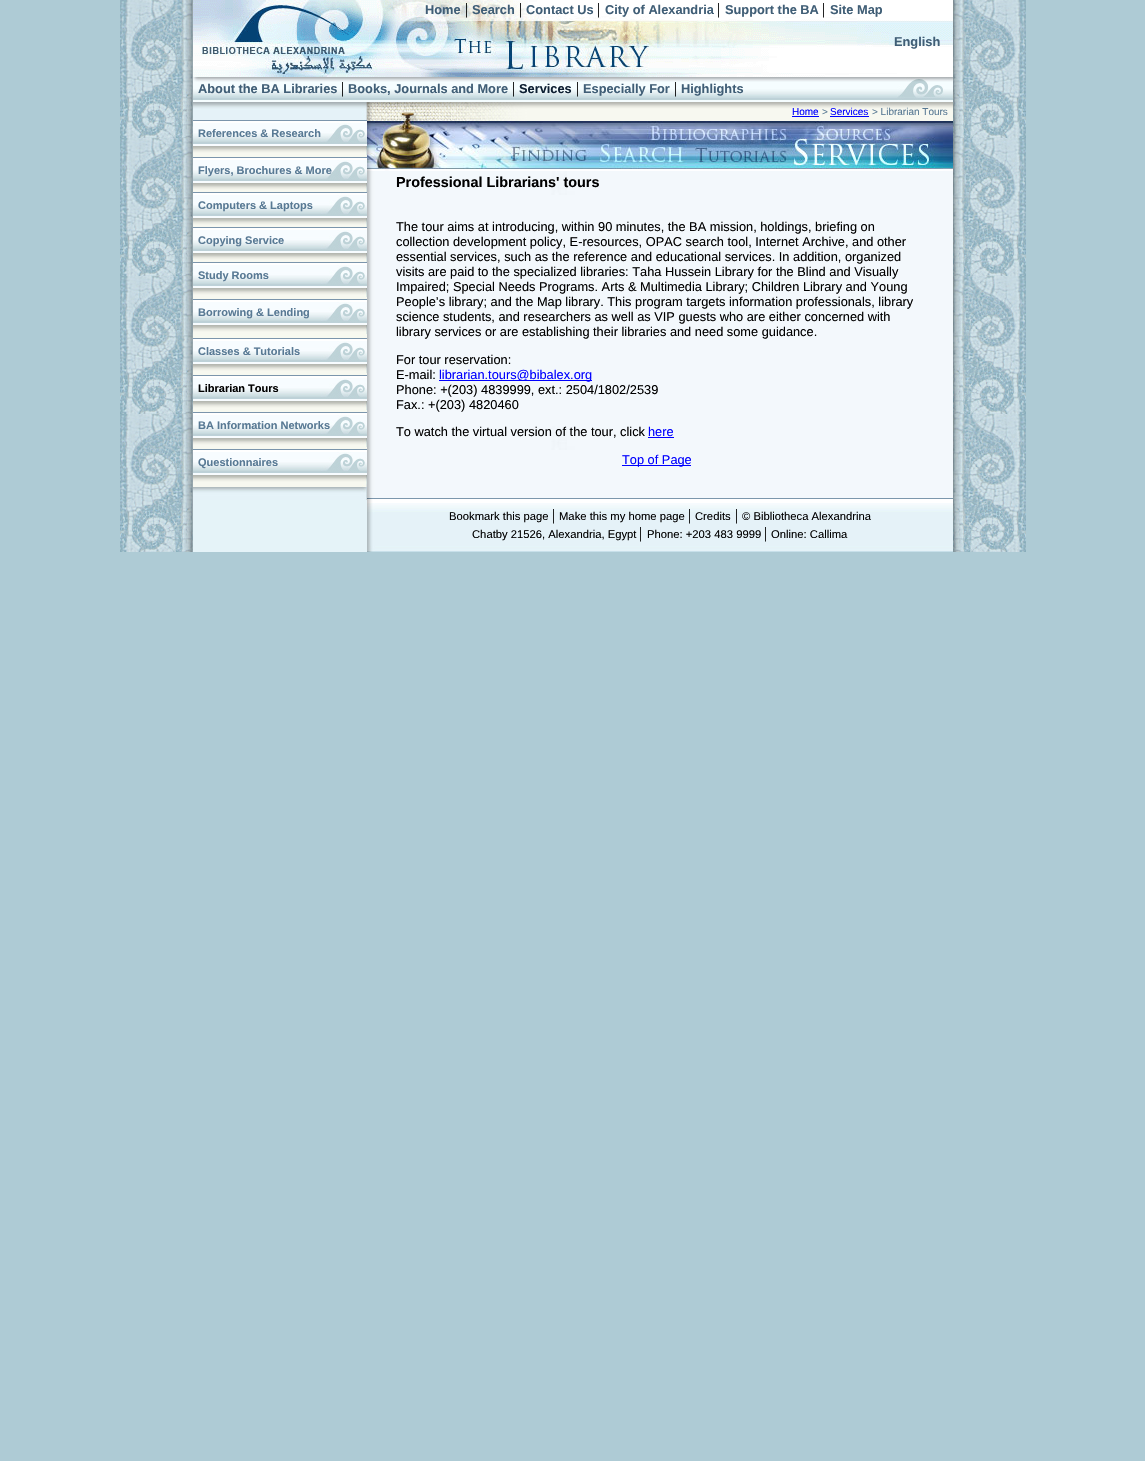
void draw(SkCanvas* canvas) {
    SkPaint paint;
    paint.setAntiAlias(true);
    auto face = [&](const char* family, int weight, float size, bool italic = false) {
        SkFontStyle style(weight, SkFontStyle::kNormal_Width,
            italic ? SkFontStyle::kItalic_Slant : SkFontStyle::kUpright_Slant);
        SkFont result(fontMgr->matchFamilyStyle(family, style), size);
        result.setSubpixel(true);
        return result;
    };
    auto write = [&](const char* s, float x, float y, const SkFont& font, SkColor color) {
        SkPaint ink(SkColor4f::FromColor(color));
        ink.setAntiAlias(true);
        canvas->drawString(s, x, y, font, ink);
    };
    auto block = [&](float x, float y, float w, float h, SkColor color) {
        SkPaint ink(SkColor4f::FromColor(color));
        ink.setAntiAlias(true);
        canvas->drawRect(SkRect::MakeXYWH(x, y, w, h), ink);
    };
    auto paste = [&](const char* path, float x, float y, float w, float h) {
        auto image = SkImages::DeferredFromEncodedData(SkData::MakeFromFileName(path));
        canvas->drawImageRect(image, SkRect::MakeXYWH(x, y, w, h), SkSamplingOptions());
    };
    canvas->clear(SkColorSetRGB(174, 203, 213));
    paste("pic1.png", 120, 0, 906, 552);
    block(193, 500, 174, 52, SkColorSetRGB(229, 243, 248));
    paste("pic2.png", 193, 0, 760, 77);
    auto kFont1 = face("Liberation Sans", 700, 12.8f);
    write("Home", 425, 14, kFont1, SkColorSetRGB(64, 94, 118));
    auto kFont2 = face("Liberation Serif", 400, 16);
    write("|", 465, 14, kFont2, SK_ColorBLACK);
    write("Search", 472, 14, kFont1, SkColorSetRGB(64, 94, 118));
    write("|", 519, 14, kFont2, SK_ColorBLACK);
    write("Contact Us", 526, 14, kFont1, SkColorSetRGB(64, 94, 118));
    write("|", 597, 14, kFont2, SK_ColorBLACK);
    write("City of Alexandria", 605, 14, kFont1, SkColorSetRGB(64, 94, 118));
    write("|", 717, 14, kFont2, SK_ColorBLACK);
    write("Support the BA", 725, 14, kFont1, SkColorSetRGB(64, 94, 118));
    write("|", 822, 14, kFont2, SK_ColorBLACK);
    write("Site Map", 830, 14, kFont1, SkColorSetRGB(64, 94, 118));
    write("English", 894, 46, kFont1, SkColorSetRGB(64, 94, 118));
    paste("pic3.png", 193, 77, 760, 25);
    write("About the BA Libraries", 198, 93, kFont1, SkColorSetRGB(64, 94, 118));
    write("|", 341, 93, kFont2, SK_ColorBLACK);
    write("Books, Journals and More", 348, 93, kFont1, SkColorSetRGB(64, 94, 118));
    write("|", 512, 93, kFont2, SK_ColorBLACK);
    write("Services", 519, 93, kFont1, SkColorSetRGB(14, 32, 51));
    write("|", 576, 93, kFont2, SK_ColorBLACK);
    write("Especially For", 583, 93, kFont1, SkColorSetRGB(64, 94, 118));
    write("|", 674, 93, kFont2, SK_ColorBLACK);
    write("Highlights", 681, 93, kFont1, SkColorSetRGB(64, 94, 118));
    paste("pic4.png", 193, 102, 174, 18);
    block(193, 155, 174, 294, SkColorSetRGB(247, 249, 240));
    paste("pic5.png", 193, 120, 174, 35);
    auto kFont3 = face("Liberation Sans", 700, 11);
    write("References & Research", 198, 137, kFont3, SkColorSetRGB(88, 121, 148));
    paste("pic5.png", 193, 157, 174, 35);
    write("Flyers, Brochures & More", 198, 174, kFont3, SkColorSetRGB(88, 121, 148));
    paste("pic5.png", 193, 192, 174, 35);
    write("Computers & Laptops", 198, 209, kFont3, SkColorSetRGB(88, 121, 148));
    paste("pic5.png", 193, 227, 174, 35);
    write("Copying Service", 198, 244, kFont3, SkColorSetRGB(88, 121, 148));
    paste("pic5.png", 193, 262, 174, 35);
    write("Study Rooms", 198, 279, kFont3, SkColorSetRGB(88, 121, 148));
    paste("pic5.png", 193, 299, 174, 35);
    write("Borrowing & Lending", 198, 316, kFont3, SkColorSetRGB(88, 121, 148));
    paste("pic5.png", 193, 338, 174, 35);
    write("Classes & Tutorials", 198, 355, kFont3, SkColorSetRGB(88, 121, 148));
    paste("pic5.png", 193, 375, 174, 35);
    write("Librarian Tours", 198, 392, kFont3, SK_ColorBLACK);
    paste("pic5.png", 193, 412, 174, 35);
    write("BA Information Networks", 198, 429, kFont3, SkColorSetRGB(88, 121, 148));
    paste("pic5.png", 193, 449, 174, 35);
    write("Questionnaires", 198, 466, kFont3, SkColorSetRGB(88, 121, 148));
    paste("pic6.png", 193, 484, 174, 16);
    paste("pic7.png", 367, 102, 586, 19);
    auto kFont4 = face("Liberation Sans", 400, 10);
    write("Home", 792, 115, kFont4, SkColorSetRGB(0, 0, 255));
    block(792, 116, 27, 1, SkColorSetRGB(0, 0, 255));
    write(">", 822, 115, kFont4, SkColorSetRGB(88, 121, 148));
    write("Services", 830, 115, kFont4, SkColorSetRGB(0, 0, 255));
    block(830, 116, 39, 1, SkColorSetRGB(0, 0, 255));
    write("> Librarian Tours", 872, 115, kFont4, SkColorSetRGB(88, 121, 148));
    paste("pic8.png", 367, 121, 586, 50);
    paste("pic9.png", 367, 171, 586, 327);
    auto kFont5 = face("Liberation Sans", 700, 14.4f);
    write("Professional Librarians' tours", 396, 187, kFont5, SK_ColorBLACK);
    auto kFont6 = face("Liberation Sans", 400, 12.8f);
    write("The tour aims at introducing, within 90 minutes, the BA mission, holdings, briefing on", 396, 231, kFont6, SK_ColorBLACK);
    write("collection development policy, E-resources, OPAC search tool, Internet Archive, and other", 396, 246, kFont6, SK_ColorBLACK);
    write("essential services, such as the reference and educational services. In addition, organized", 396, 261, kFont6, SK_ColorBLACK);
    write("visits are paid to the specialized libraries: Taha Hussein Library for the Blind and Visually", 396, 276, kFont6, SK_ColorBLACK);
    write("Impaired; Special Needs Programs. Arts & Multimedia Library; Children Library and Young", 396, 291, kFont6, SK_ColorBLACK);
    write("People’s library; and the Map library. This program targets information professionals, library", 396, 306, kFont6, SK_ColorBLACK);
    write("science students, and researchers as well as VIP guests who are either concerned with", 396, 321, kFont6, SK_ColorBLACK);
    write("library services or are establishing their libraries and need some guidance.", 396, 336, kFont6, SK_ColorBLACK);
    write("For tour reservation:", 396, 364, kFont6, SK_ColorBLACK);
    write("E-mail:", 396, 379, kFont6, SK_ColorBLACK);
    block(439, 380, 153, 1, SkColorSetRGB(0, 0, 255));
    write("librarian.tours@bibalex.org", 439, 379, kFont6, SkColorSetRGB(0, 0, 255));
    write("Phone: +(203) 4839999, ext.: 2504/1802/2539", 396, 394, kFont6, SK_ColorBLACK);
    write("Fax.: +(203) 4820460", 396, 409, kFont6, SK_ColorBLACK);
    write("To watch the virtual version of the tour, click", 396, 436, kFont6, SK_ColorBLACK);
    write("here", 648, 436, kFont6, SkColorSetRGB(0, 0, 255));
    block(648, 437, 26, 1, SkColorSetRGB(0, 0, 255));
    block(622, 465, 69, 1, SkColorSetRGB(0, 0, 255));
    write("Top of Page", 622, 464, kFont6, SkColorSetRGB(0, 0, 255));
    paste("pic10.png", 367, 498, 586, 54);
    auto kFont7 = face("Liberation Sans", 400, 11.25f);
    write("Bookmark this page", 449, 520, kFont7, SK_ColorBLACK);
    write("|", 552, 520, kFont2, SK_ColorBLACK);
    write("Make this my home page", 559, 520, kFont7, SK_ColorBLACK);
    write("|", 688, 520, kFont2, SK_ColorBLACK);
    write("Credits", 695, 520, kFont7, SK_ColorBLACK);
    write("|", 735, 520, kFont2, SK_ColorBLACK);
    write("© Bibliotheca Alexandrina", 742, 520, kFont7, SK_ColorBLACK);
    write("Chatby 21526, Alexandria, Egypt", 472, 538, kFont7, SK_ColorBLACK);
    write("|", 639, 538, kFont2, SK_ColorBLACK);
    write("Phone: +203 483 9999", 647, 538, kFont7, SK_ColorBLACK);
    write("|", 764, 538, kFont2, SK_ColorBLACK);
    write("Online: Callima", 771, 538, kFont7, SK_ColorBLACK);
}
